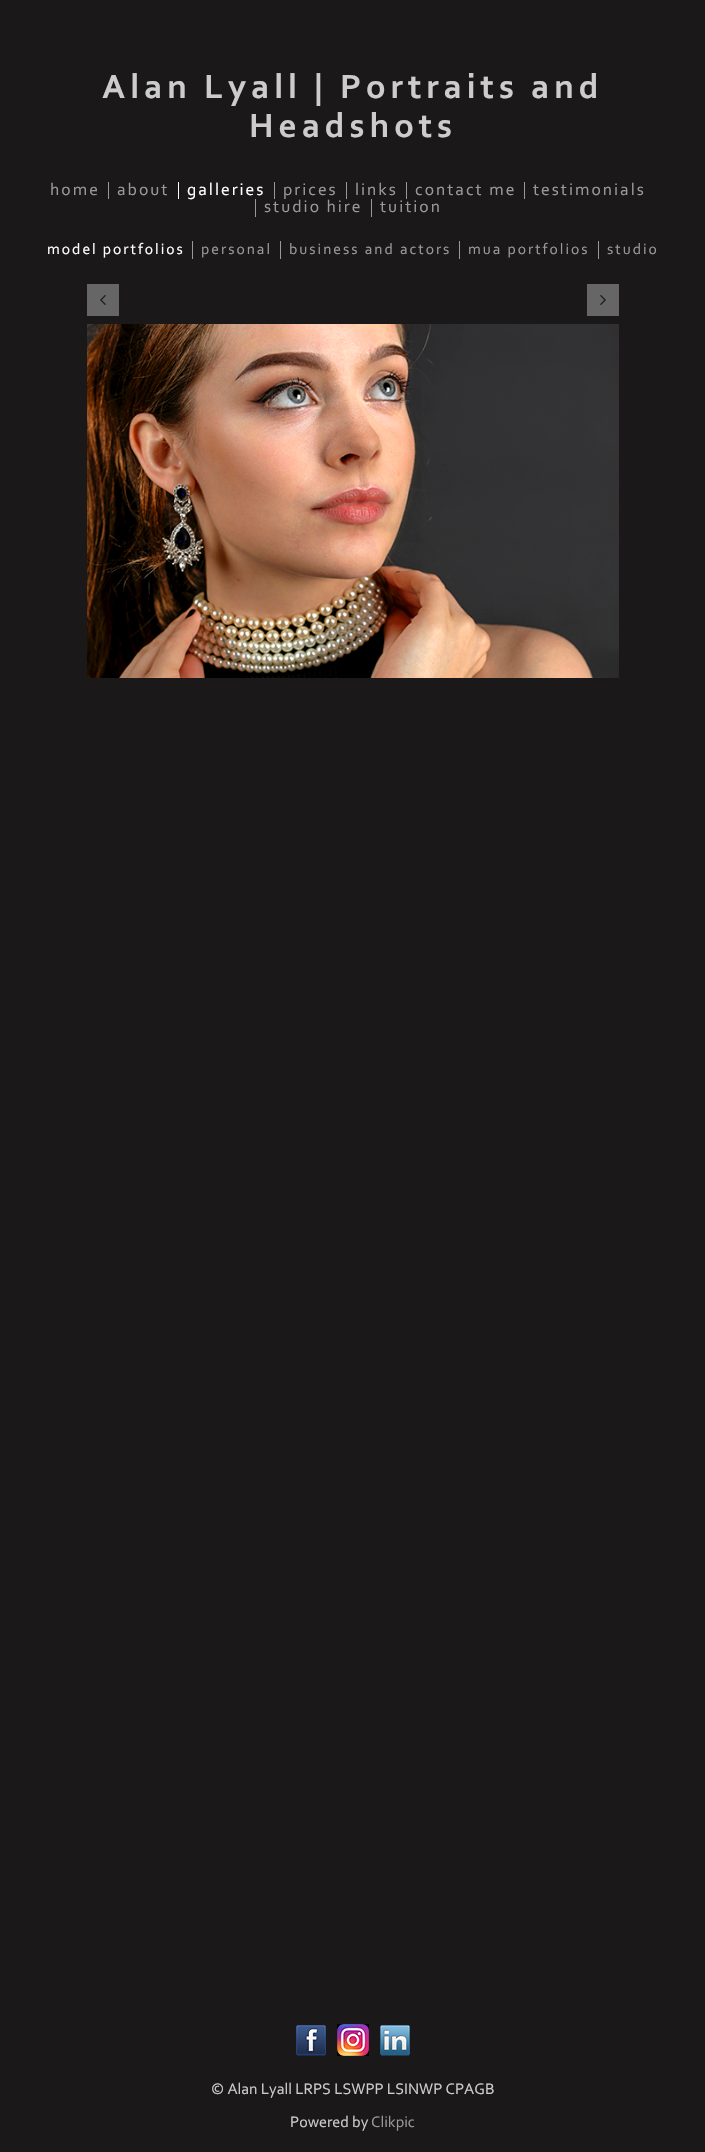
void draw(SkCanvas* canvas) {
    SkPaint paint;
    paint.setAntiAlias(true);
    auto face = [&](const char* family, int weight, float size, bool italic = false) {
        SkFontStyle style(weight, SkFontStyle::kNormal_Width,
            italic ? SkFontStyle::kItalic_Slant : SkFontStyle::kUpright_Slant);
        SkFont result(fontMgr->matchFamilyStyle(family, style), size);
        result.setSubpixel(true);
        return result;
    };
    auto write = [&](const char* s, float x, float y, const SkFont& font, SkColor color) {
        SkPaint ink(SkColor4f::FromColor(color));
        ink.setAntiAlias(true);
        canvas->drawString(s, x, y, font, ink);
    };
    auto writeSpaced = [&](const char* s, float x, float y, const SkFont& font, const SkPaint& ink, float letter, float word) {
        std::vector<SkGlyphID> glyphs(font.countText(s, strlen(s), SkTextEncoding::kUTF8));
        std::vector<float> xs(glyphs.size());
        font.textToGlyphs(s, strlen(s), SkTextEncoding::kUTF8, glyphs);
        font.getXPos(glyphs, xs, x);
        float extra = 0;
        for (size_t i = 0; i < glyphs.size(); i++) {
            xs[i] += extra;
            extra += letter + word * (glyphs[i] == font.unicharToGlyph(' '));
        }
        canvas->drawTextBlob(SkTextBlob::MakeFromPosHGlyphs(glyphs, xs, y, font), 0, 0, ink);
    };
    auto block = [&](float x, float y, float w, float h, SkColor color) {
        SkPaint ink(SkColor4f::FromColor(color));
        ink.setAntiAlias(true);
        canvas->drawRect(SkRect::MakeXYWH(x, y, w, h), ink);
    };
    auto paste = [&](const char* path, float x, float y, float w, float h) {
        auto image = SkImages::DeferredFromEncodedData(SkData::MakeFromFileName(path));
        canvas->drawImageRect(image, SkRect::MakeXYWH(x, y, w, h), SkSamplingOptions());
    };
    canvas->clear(SkColorSetRGB(26, 24, 24));
    auto kFont1 = face("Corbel", 700, 35.25f);
    paint.setColor(SkColorSetRGB(204, 204, 204));
    writeSpaced("Alan Lyall | Portraits and", 102, 98, kFont1, paint, 5, 0);
    writeSpaced("Headshots", 249, 137, kFont1, paint, 5, 0);
    auto kFont2 = face("Corbel", 400, 17.5f);
    paint.setColor(SkColorSetRGB(153, 153, 153));
    writeSpaced("home", 50, 195, kFont2, paint, 2, 0);
    block(108, 182, 1, 17, SkColorSetRGB(153, 153, 153));
    writeSpaced("about", 117, 195, kFont2, paint, 2, 0);
    block(178, 182, 1, 17, SK_ColorWHITE);
    paint.setColor(SK_ColorWHITE);
    writeSpaced("galleries", 187, 195, kFont2, paint, 2, 0);
    block(274, 182, 1, 17, SkColorSetRGB(153, 153, 153));
    paint.setColor(SkColorSetRGB(153, 153, 153));
    writeSpaced("prices", 283, 195, kFont2, paint, 2, 0);
    block(346, 182, 1, 17, SkColorSetRGB(153, 153, 153));
    writeSpaced("links", 355, 195, kFont2, paint, 2, 0);
    block(406, 182, 1, 17, SkColorSetRGB(153, 153, 153));
    writeSpaced("contact me", 415, 195, kFont2, paint, 2, 0);
    block(524, 182, 1, 17, SkColorSetRGB(153, 153, 153));
    writeSpaced("testimonials", 533, 195, kFont2, paint, 2, 0);
    block(255, 199, 1, 18, SkColorSetRGB(153, 153, 153));
    writeSpaced("studio hire", 264, 212, kFont2, paint, 2, 0);
    block(371, 199, 1, 18, SkColorSetRGB(153, 153, 153));
    writeSpaced("tuition", 380, 212, kFont2, paint, 2, 0);
    auto kFont3 = face("Corbel", 400, 15.5f);
    paint.setColor(SK_ColorWHITE);
    writeSpaced("model portfolios", 47, 254, kFont3, paint, 2, 0);
    block(192, 241, 1, 18, SkColorSetRGB(153, 153, 153));
    paint.setColor(SkColorSetRGB(153, 153, 153));
    writeSpaced("personal", 201, 254, kFont3, paint, 2, 0);
    block(280, 241, 1, 18, SkColorSetRGB(153, 153, 153));
    writeSpaced("business and actors", 289, 254, kFont3, paint, 2, 0);
    block(459, 241, 1, 18, SkColorSetRGB(153, 153, 153));
    writeSpaced("mua portfolios", 468, 254, kFont3, paint, 2, 0);
    block(598, 241, 1, 18, SkColorSetRGB(153, 153, 153));
    writeSpaced("studio", 607, 254, kFont3, paint, 2, 0);
    block(87, 284, 32, 32, SkColorSetRGB(102, 102, 102));
    paste("pic1.png", 100, 295, 6, 10);
    block(587, 284, 32, 32, SkColorSetRGB(102, 102, 102));
    paste("pic2.png", 600, 295, 6, 10);
    paste("pic3.png", 87, 324, 532, 354);
    paste("pic4.png", 296, 2025, 30, 31);
    paste("pic5.png", 337, 2024, 32, 32);
    paste("pic6.png", 380, 2025, 30, 31);
    auto kFont4 = face("Corbel", 400, 16);
    write("© Alan Lyall LRPS LSWPP LSINWP CPAGB", 211, 2094, kFont4, SkColorSetRGB(204, 204, 204));
    write("Powered by", 290, 2127, kFont4, SkColorSetRGB(204, 204, 204));
    write("Clikpic", 371, 2127, kFont4, SkColorSetRGB(153, 153, 153));
}
